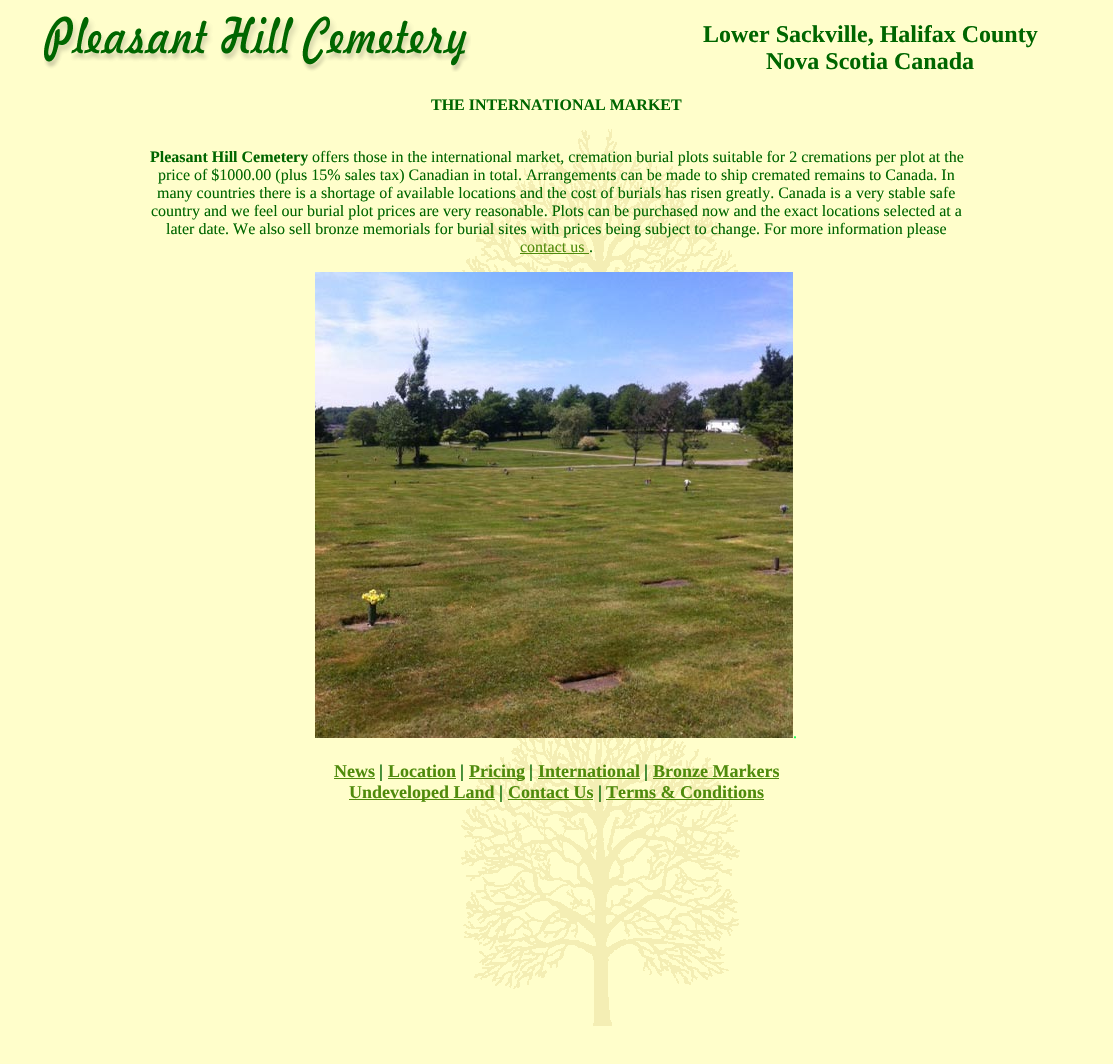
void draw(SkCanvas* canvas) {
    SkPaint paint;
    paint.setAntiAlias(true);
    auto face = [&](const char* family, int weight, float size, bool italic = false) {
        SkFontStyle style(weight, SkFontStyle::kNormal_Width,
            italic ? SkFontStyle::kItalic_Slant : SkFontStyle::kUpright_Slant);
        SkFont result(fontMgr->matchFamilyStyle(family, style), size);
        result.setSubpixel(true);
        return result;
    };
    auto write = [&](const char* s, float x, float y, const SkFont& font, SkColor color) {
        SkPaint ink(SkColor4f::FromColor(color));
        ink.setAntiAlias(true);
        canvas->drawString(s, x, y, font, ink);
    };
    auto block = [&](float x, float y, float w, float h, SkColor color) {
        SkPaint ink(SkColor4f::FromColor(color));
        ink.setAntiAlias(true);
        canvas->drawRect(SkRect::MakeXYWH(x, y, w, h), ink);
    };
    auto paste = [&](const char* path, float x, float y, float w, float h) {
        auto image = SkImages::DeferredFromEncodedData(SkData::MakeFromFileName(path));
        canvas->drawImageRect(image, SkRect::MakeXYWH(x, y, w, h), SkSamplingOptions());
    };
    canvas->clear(SK_ColorWHITE);
    paste("pic1.png", 0, 0, 1113, 1064);
    paste("pic2.png", 44, 16, 427, 56);
    auto kFont1 = face("Liberation Serif", 700, 24);
    write("Lower Sackville, Halifax County", 703, 42, kFont1, SkColorSetRGB(0, 102, 0));
    write("Nova Scotia Canada", 766, 69, kFont1, SkColorSetRGB(0, 102, 0));
    auto kFont2 = face("Liberation Serif", 700, 16);
    write("THE INTERNATIONAL MARKET", 431, 110, kFont2, SkColorSetRGB(0, 102, 0));
    write("Pleasant Hill Cemetery", 150, 162, kFont2, SkColorSetRGB(0, 102, 0));
    auto kFont3 = face("Liberation Serif", 400, 16);
    write("offers those in the international market, cremation burial plots suitable for 2 cremations per plot at the", 312, 162, kFont3, SkColorSetRGB(0, 102, 0));
    write("price of $1000.00 (plus 15% sales tax) Canadian in total. Arrangements can be made to ship cremated remains to Canada. In", 158, 180, kFont3, SkColorSetRGB(0, 102, 0));
    write("many countries there is a shortage of available locations and the cost of burials has risen greatly. Canada is a very stable safe", 157, 198, kFont3, SkColorSetRGB(0, 102, 0));
    write("country and we feel our burial plot prices are very reasonable. Plots can be purchased now and the exact locations selected at a", 151, 216, kFont3, SkColorSetRGB(0, 102, 0));
    write("later date. We also sell bronze memorials for burial sites with prices being subject to change. For more information please", 166, 234, kFont3, SkColorSetRGB(0, 102, 0));
    write("contact us", 520, 252, kFont3, SkColorSetRGB(79, 139, 12));
    block(520, 253, 69, 1, SkColorSetRGB(79, 139, 12));
    write(".", 589, 252, kFont3, SkColorSetRGB(0, 102, 0));
    paste("pic3.png", 315, 272, 478, 466);
    write(".", 793, 738, kFont3, SkColorSetRGB(0, 255, 64));
    auto kFont4 = face("Liberation Serif", 700, 18);
    write("News", 334, 777, kFont4, SkColorSetRGB(79, 139, 12));
    block(334, 778, 41, 1, SkColorSetRGB(79, 139, 12));
    write("|", 379, 777, kFont4, SkColorSetRGB(0, 102, 0));
    write("Location", 388, 777, kFont4, SkColorSetRGB(79, 139, 12));
    block(388, 778, 68, 1, SkColorSetRGB(79, 139, 12));
    write("|", 460, 777, kFont4, SkColorSetRGB(0, 102, 0));
    block(469, 778, 56, 1, SkColorSetRGB(79, 139, 12));
    write("Pricing", 469, 777, kFont4, SkColorSetRGB(79, 139, 12));
    write("|", 529, 777, kFont4, SkColorSetRGB(0, 102, 0));
    write("International", 538, 777, kFont4, SkColorSetRGB(79, 139, 12));
    block(538, 778, 102, 1, SkColorSetRGB(79, 139, 12));
    write("|", 644, 777, kFont4, SkColorSetRGB(0, 102, 0));
    write("Bronze Markers", 653, 777, kFont4, SkColorSetRGB(79, 139, 12));
    block(653, 778, 126, 1, SkColorSetRGB(79, 139, 12));
    block(349, 799, 146, 1, SkColorSetRGB(79, 139, 12));
    write("Undeveloped Land", 349, 798, kFont4, SkColorSetRGB(79, 139, 12));
    write("|", 499, 798, kFont4, SkColorSetRGB(0, 102, 0));
    write("Contact Us", 508, 798, kFont4, SkColorSetRGB(79, 139, 12));
    block(508, 799, 85, 1, SkColorSetRGB(79, 139, 12));
    write("|", 598, 798, kFont4, SkColorSetRGB(0, 102, 0));
    write("Terms & Conditions", 606, 798, kFont4, SkColorSetRGB(79, 139, 12));
    block(606, 799, 158, 1, SkColorSetRGB(79, 139, 12));
}
